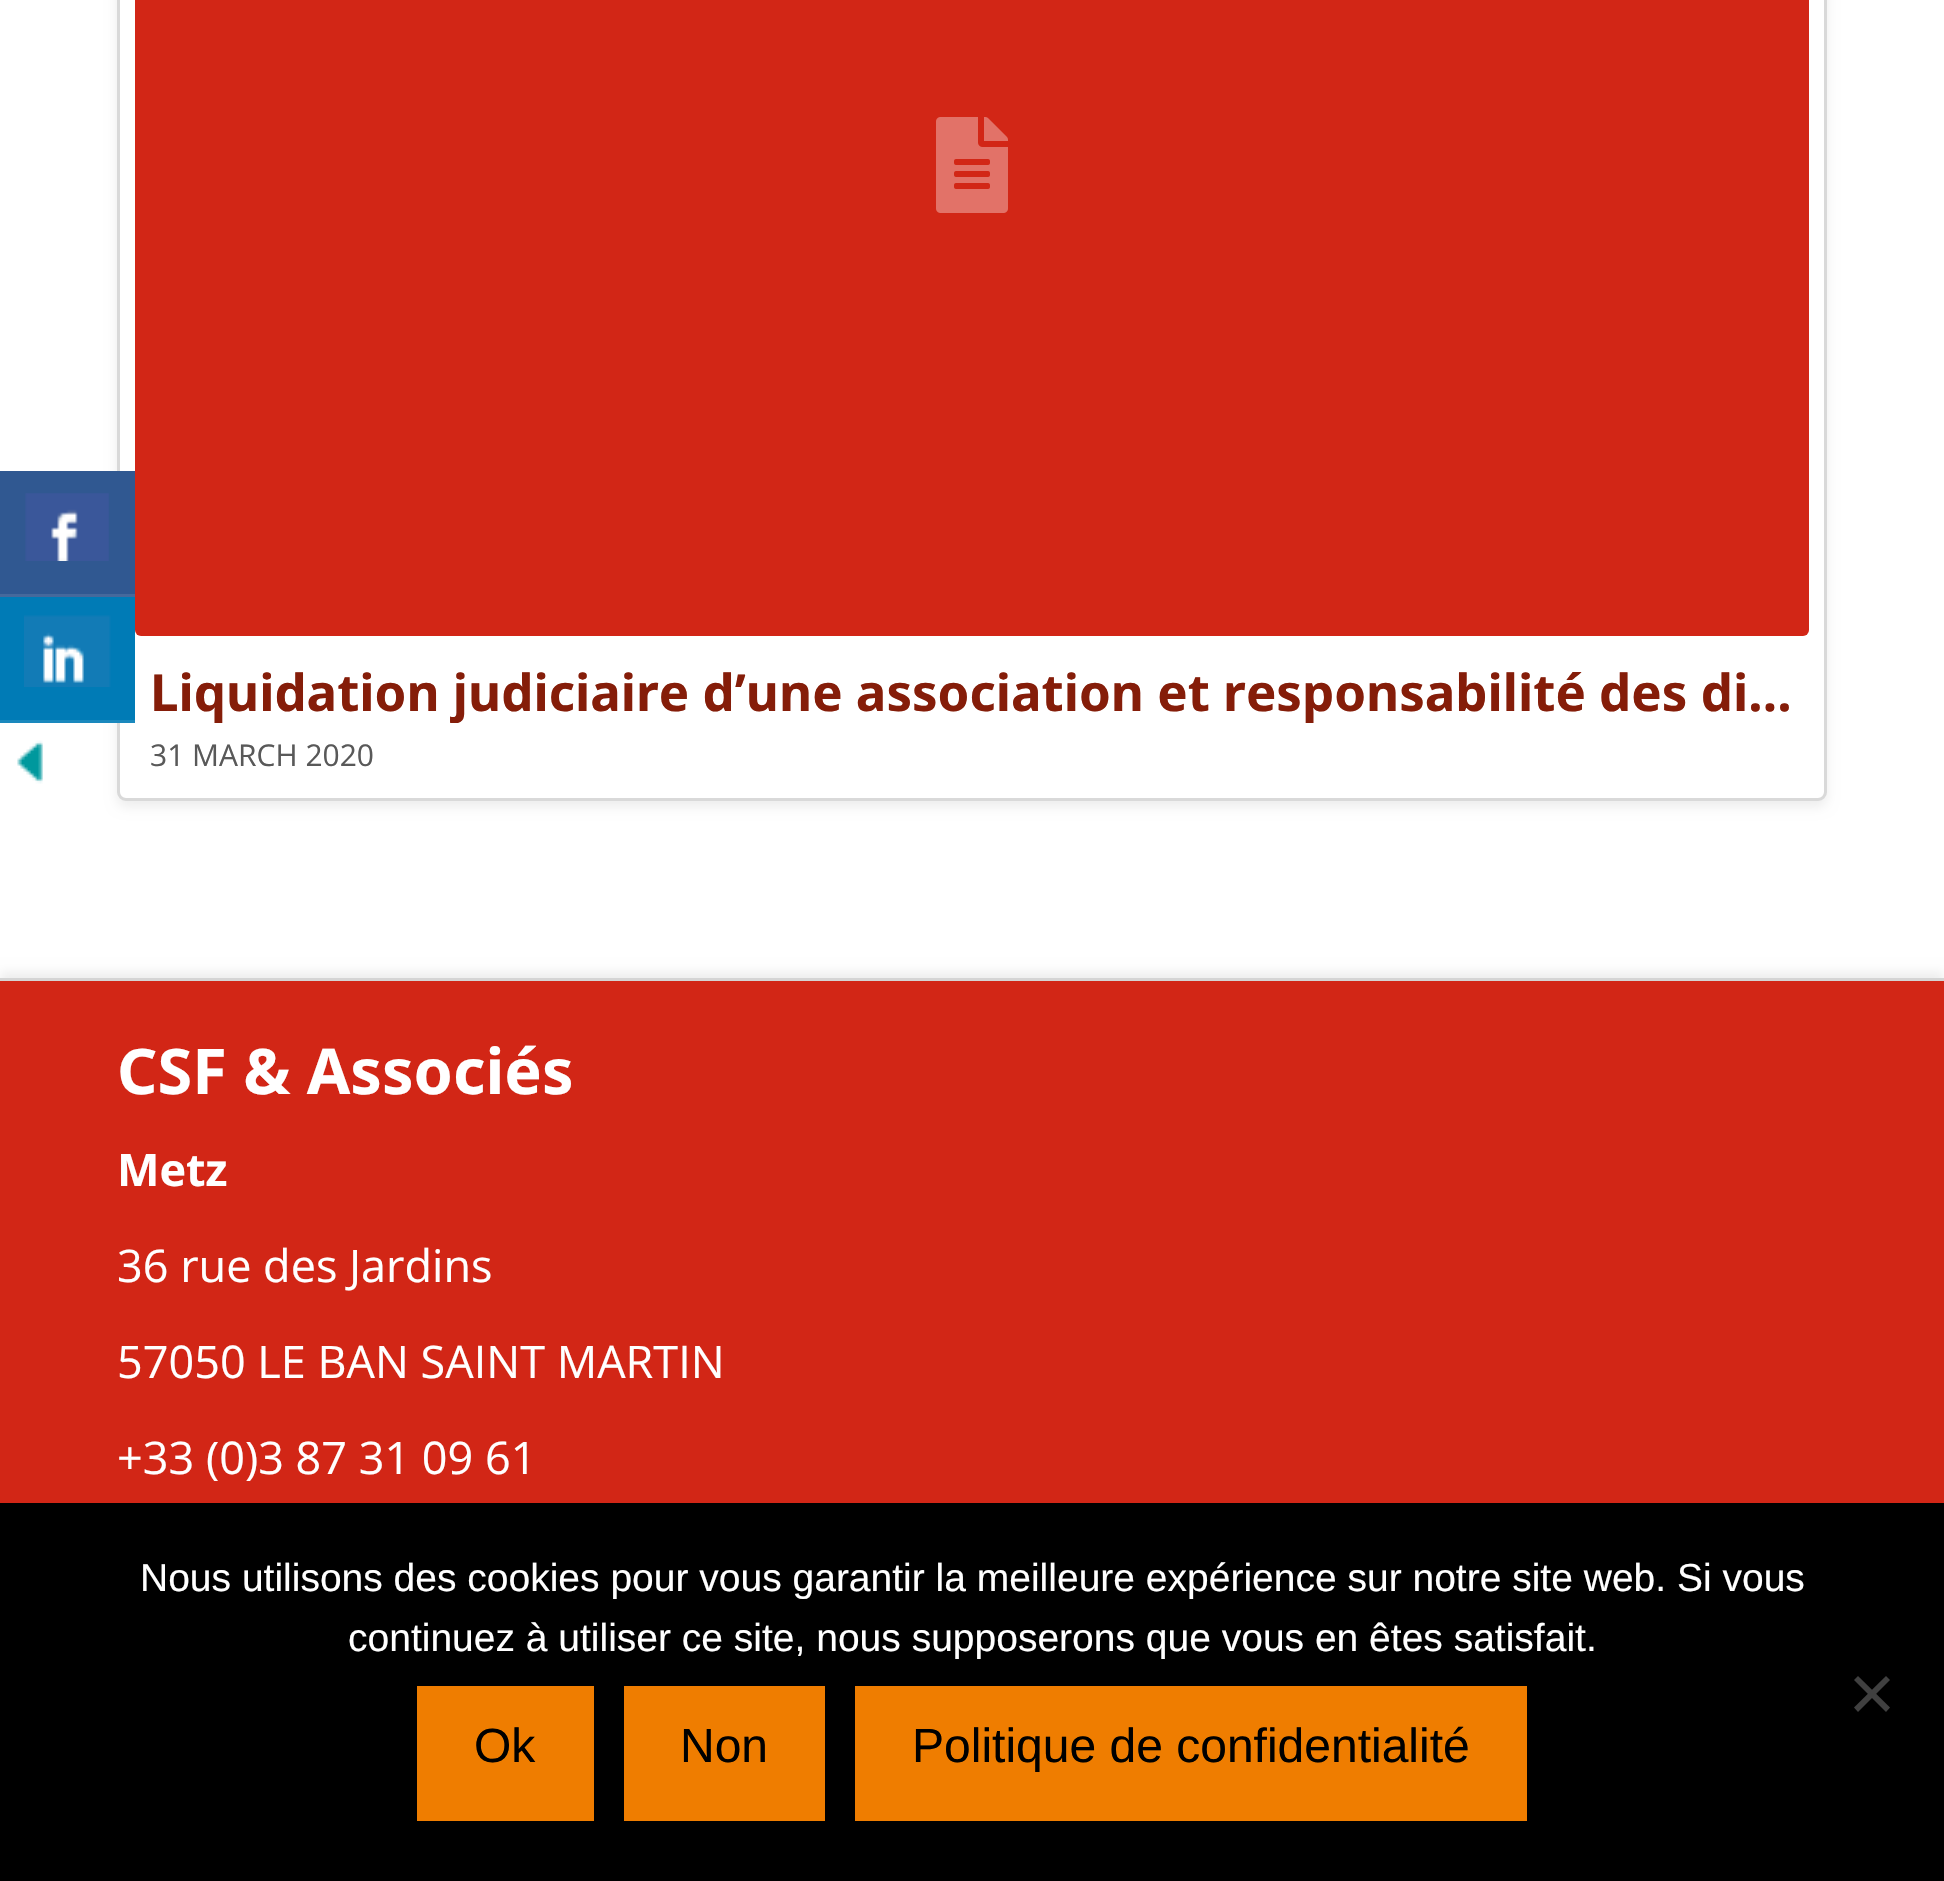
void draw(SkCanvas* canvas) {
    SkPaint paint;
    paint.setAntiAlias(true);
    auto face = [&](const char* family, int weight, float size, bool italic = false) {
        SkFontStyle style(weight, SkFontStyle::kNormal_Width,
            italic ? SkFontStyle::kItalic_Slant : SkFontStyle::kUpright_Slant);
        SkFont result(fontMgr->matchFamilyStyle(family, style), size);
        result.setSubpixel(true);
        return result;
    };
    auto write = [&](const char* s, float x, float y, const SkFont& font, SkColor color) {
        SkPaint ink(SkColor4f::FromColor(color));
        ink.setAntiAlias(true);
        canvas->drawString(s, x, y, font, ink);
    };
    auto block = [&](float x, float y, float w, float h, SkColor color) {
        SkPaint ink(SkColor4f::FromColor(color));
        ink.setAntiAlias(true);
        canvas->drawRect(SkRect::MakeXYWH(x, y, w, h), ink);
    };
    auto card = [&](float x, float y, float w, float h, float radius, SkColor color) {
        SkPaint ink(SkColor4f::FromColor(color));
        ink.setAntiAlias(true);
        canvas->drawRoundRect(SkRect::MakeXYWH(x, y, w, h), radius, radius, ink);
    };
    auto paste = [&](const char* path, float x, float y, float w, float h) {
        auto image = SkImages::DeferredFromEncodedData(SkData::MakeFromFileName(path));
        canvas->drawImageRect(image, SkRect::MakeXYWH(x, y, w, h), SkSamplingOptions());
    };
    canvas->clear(SK_ColorWHITE);
    paint.setColor(SkColorSetARGB(18, 0, 0, 0));
    paint.setMaskFilter(SkMaskFilter::MakeBlur(kNormal_SkBlurStyle, 6));
    canvas->drawRoundRect(SkRect::MakeXYWH(117, -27, 1710, 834), 9, 9, paint);
    paint.setMaskFilter(nullptr);
    paint.setColor(SK_ColorWHITE);
    canvas->drawRoundRect(SkRect::MakeXYWH(118.5f, -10.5f, 1707, 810), 7.5f, 7.5f, paint);
    paint.setStyle(SkPaint::kStroke_Style);
    paint.setStrokeWidth(3);
    paint.setColor(SkColorSetRGB(217, 217, 217));
    canvas->drawRoundRect(SkRect::MakeXYWH(118.5f, -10.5f, 1707, 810), 7.5f, 7.5f, paint);
    block(0, 471, 135, 123, SkColorSetRGB(48, 88, 145));
    block(0, 594, 135, 3, SkColorSetRGB(69, 105, 156));
    paste("pic1.png", 25, 493, 84, 68);
    block(0, 597, 135, 123, SkColorSetRGB(0, 123, 182));
    block(0, 720, 135, 3, SkColorSetRGB(26, 136, 189));
    paste("pic2.png", 24, 615, 87, 72);
    paste("pic3.png", 17, 740, 26, 44);
    card(135, -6, 1674, 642, 6, SkColorSetRGB(210, 38, 22));
    paste("pic4.png", 936, 117, 72, 96);
    canvas->save();
    canvas->clipRect(SkRect::MakeXYWH(150, 663, 1644, 60));
    auto kFont1 = face("Noto Sans", 700, 51);
    write("Liquidation judiciaire d’une association et responsabilité des di…", 150, 711, kFont1, SkColorSetRGB(133, 29, 9));
    canvas->restore();
    auto kFont2 = face("Open Sans", 400, 30);
    write("31 MARCH 2020", 150, 766, kFont2, SkColorSetRGB(89, 89, 89));
    paint.setStyle(SkPaint::kFill_Style);
    paint.setColor(SkColorSetARGB(18, 0, 0, 0));
    paint.setMaskFilter(SkMaskFilter::MakeBlur(kNormal_SkBlurStyle, 5));
    canvas->drawRect(SkRect::MakeXYWH(0, 972, 1944, 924), paint);
    paint.setMaskFilter(nullptr);
    block(0, 981, 1944, 522, SkColorSetRGB(210, 38, 22));
    block(0, 978, 1944, 3, SkColorSetRGB(212, 212, 212));
    auto kFont3 = face("Noto Sans", 700, 63);
    write("CSF & Associés", 117, 1094, kFont3, SK_ColorWHITE);
    auto kFont4 = face("Open Sans", 700, 45);
    write("Metz", 117, 1186, kFont4, SK_ColorWHITE);
    auto kFont5 = face("Open Sans", 400, 45);
    write("36 rue des Jardins", 117, 1282, kFont5, SK_ColorWHITE);
    write("57050 LE BAN SAINT MARTIN", 117, 1378, kFont5, SK_ColorWHITE);
    write("+33 (0)3 87 31 09 61", 117, 1474, kFont5, SK_ColorWHITE);
    block(0, 1503, 1944, 378, SK_ColorBLACK);
    auto kFont6 = face("Liberation Sans", 400, 39);
    write("Nous utilisons des cookies pour vous garantir la meilleure expérience sur notre site web. Si vous", 140, 1591, kFont6, SK_ColorWHITE);
    write("continuez à utiliser ce site, nous supposerons que vous en êtes satisfait.", 348, 1651, kFont6, SK_ColorWHITE);
    paint.setColor(SkColorSetRGB(64, 64, 64));
    canvas->drawPath(SkPathBuilder().moveTo(1886, 1676).lineTo(1890, 1680).lineTo(1858, 1712).lineTo(1854, 1707.5f).close().detach(), paint);
    canvas->drawPath(SkPathBuilder().moveTo(1854, 1680).lineTo(1858, 1676).lineTo(1890, 1707.5f).lineTo(1886, 1712).close().detach(), paint);
    block(417, 1686, 177, 135, SkColorSetRGB(239, 125, 0));
    auto kFont7 = face("Liberation Sans", 400, 48);
    write("Ok", 474, 1762, kFont7, SK_ColorBLACK);
    block(624, 1686, 201, 135, SkColorSetRGB(239, 125, 0));
    write("Non", 680, 1762, kFont7, SK_ColorBLACK);
    block(855, 1686, 672, 135, SkColorSetRGB(239, 125, 0));
    write("Politique de confidentialité", 912, 1762, kFont7, SK_ColorBLACK);
}
